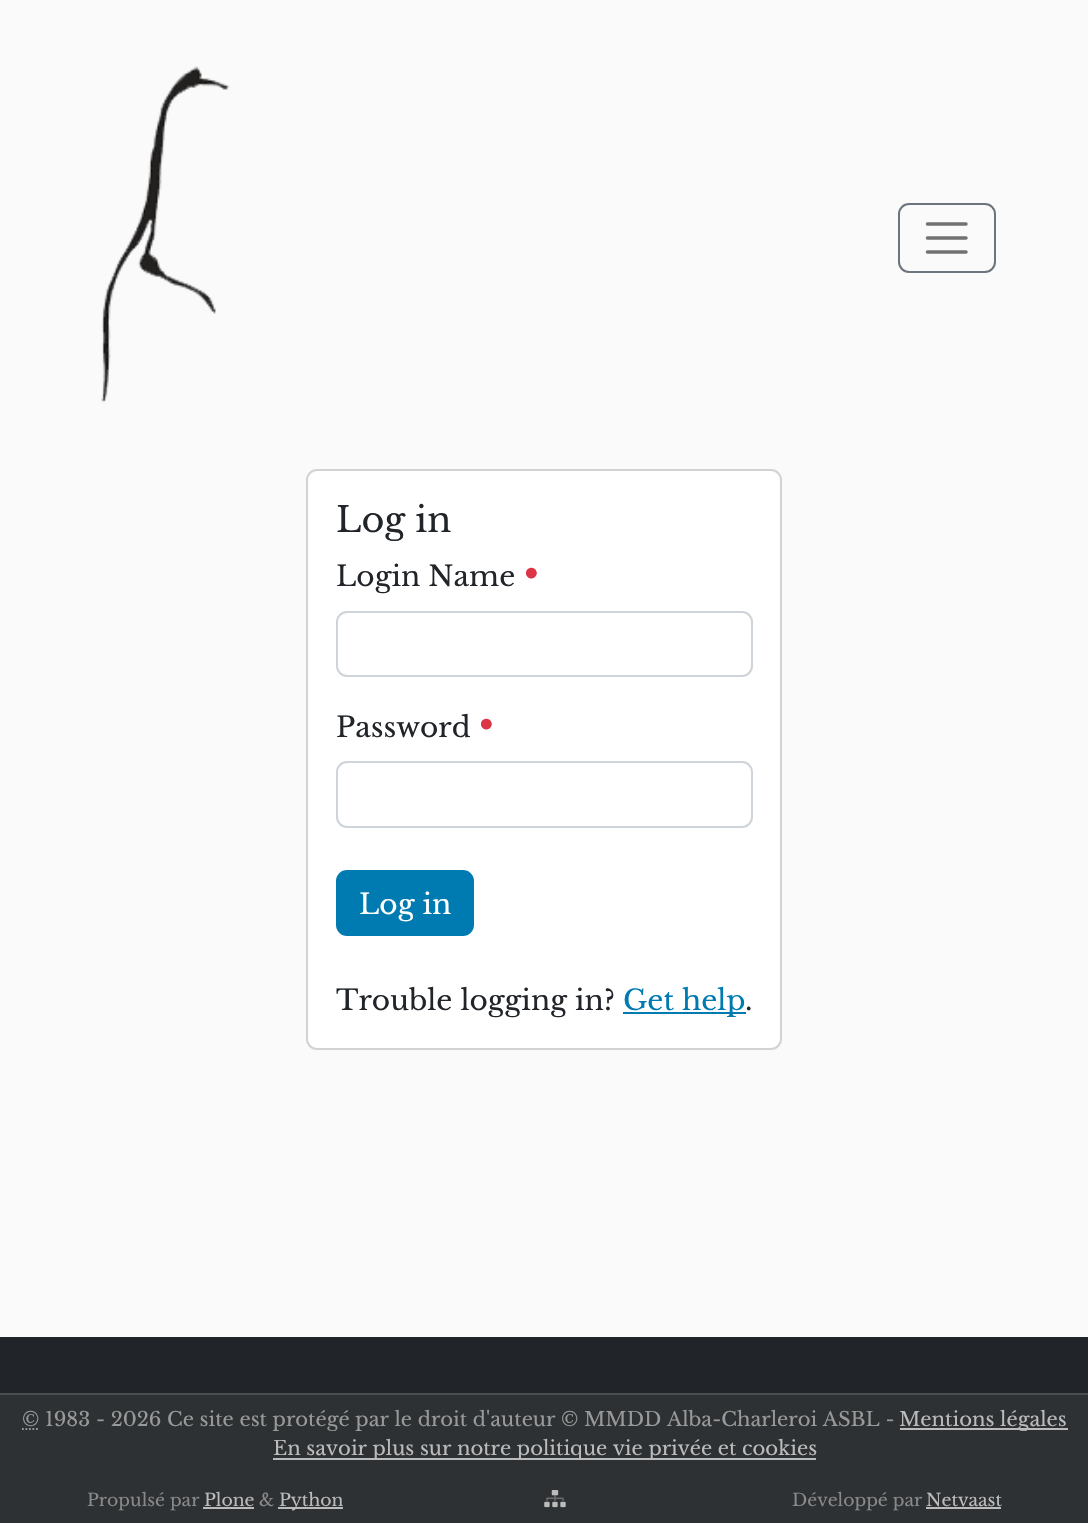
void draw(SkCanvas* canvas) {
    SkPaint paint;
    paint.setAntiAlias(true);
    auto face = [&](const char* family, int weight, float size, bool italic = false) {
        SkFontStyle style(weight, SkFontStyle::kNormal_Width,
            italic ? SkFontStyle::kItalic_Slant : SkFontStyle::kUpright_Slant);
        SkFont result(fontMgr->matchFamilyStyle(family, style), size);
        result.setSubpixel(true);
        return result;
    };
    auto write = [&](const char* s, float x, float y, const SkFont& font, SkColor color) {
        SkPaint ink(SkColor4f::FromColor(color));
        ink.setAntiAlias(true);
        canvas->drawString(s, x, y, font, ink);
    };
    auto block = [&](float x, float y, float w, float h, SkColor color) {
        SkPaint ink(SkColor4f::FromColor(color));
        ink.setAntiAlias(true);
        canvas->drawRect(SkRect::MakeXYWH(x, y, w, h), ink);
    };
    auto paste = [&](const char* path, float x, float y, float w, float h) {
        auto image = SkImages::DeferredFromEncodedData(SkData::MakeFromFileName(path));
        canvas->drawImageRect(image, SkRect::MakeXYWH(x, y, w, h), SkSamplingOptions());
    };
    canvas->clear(SkColorSetRGB(250, 250, 250));
    paste("pic1.png", 101, 66, 129, 337);
    paint.setStyle(SkPaint::kStroke_Style);
    paint.setStrokeWidth(2);
    paint.setColor(SkColorSetRGB(108, 117, 125));
    canvas->drawRoundRect(SkRect::MakeXYWH(899, 204, 96, 68), 10, 10, paint);
    paint.setStrokeWidth(3.5f);
    paint.setStrokeCap(SkPaint::kRound_Cap);
    paint.setColor(SkColorSetRGB(113, 113, 113));
    canvas->drawPath(SkPathBuilder().moveTo(927.5f, 224).lineTo(966, 224).moveTo(927.5f, 238).lineTo(966, 238).moveTo(927.5f, 252).lineTo(966, 252).detach(), paint);
    paint.setStyle(SkPaint::kFill_Style);
    paint.setColor(SK_ColorWHITE);
    canvas->drawRoundRect(SkRect::MakeXYWH(307, 470, 474, 579), 10, 10, paint);
    paint.setStyle(SkPaint::kStroke_Style);
    paint.setStrokeWidth(2);
    paint.setStrokeCap(SkPaint::kButt_Cap);
    paint.setColor(SkColorSetRGB(210, 210, 210));
    canvas->drawRoundRect(SkRect::MakeXYWH(307, 470, 474, 579), 10, 10, paint);
    auto kFont1 = face("Libre Baskerville", 400, 35);
    write("Log in", 336, 532, kFont1, SkColorSetRGB(33, 37, 41));
    auto kFont2 = face("Libre Baskerville", 400, 28);
    write("Login Name", 336, 586, kFont2, SkColorSetRGB(33, 37, 41));
    write("•", 523, 586, kFont1, SkColorSetRGB(220, 53, 69));
    paint.setColor(SkColorSetRGB(206, 212, 218));
    canvas->drawRoundRect(SkRect::MakeXYWH(337, 612, 415, 64), 10, 10, paint);
    write("Password", 336, 737, kFont2, SkColorSetRGB(33, 37, 41));
    write("•", 478, 737, kFont1, SkColorSetRGB(220, 53, 69));
    canvas->drawRoundRect(SkRect::MakeXYWH(337, 762, 415, 65), 10, 10, paint);
    paint.setStyle(SkPaint::kFill_Style);
    paint.setColor(SkColorSetRGB(0, 123, 177));
    canvas->drawRoundRect(SkRect::MakeXYWH(337, 871, 136, 64), 10, 10, paint);
    paint.setStyle(SkPaint::kStroke_Style);
    canvas->drawRoundRect(SkRect::MakeXYWH(337, 871, 136, 64), 10, 10, paint);
    write("Log in", 359, 914, kFont2, SK_ColorWHITE);
    write("Trouble logging in?", 336, 1010, kFont2, SkColorSetRGB(33, 37, 41));
    block(623, 1012, 123, 2, SkColorSetRGB(0, 123, 177));
    write("Get help", 623, 1010, kFont2, SkColorSetRGB(0, 123, 177));
    write(".", 745, 1010, kFont2, SkColorSetRGB(33, 37, 41));
    block(0, 1337, 1088, 56, SkColorSetRGB(33, 37, 41));
    block(0, 1395, 1088, 128, SkColorSetRGB(46, 49, 51));
    block(0, 1393, 1088, 2, SkColorSetRGB(77, 77, 77));
    paint.setStrokeWidth(1.8f);
    paint.setColor(SkColorSetRGB(153, 153, 153));
    paint.setPathEffect(SkDashPathEffect::Make({{1.75f, 1.75f}}, 0));
    canvas->drawPath(SkPathBuilder().moveTo(22, 1429).lineTo(39.5f, 1429).detach(), paint);
    paint.setPathEffect(nullptr);
    auto kFont3 = face("Libre Baskerville", 400, 19.6f);
    write("© 1983 - 2026 Ce site est protégé par le droit d'auteur © MMDD Alba-Charleroi ASBL -", 22, 1426, kFont3, SkColorSetRGB(153, 153, 153));
    block(900, 1428, 168, 2, SkColorSetRGB(187, 187, 187));
    write("Mentions légales", 899, 1426, kFont3, SkColorSetRGB(187, 187, 187));
    block(273, 1458, 543, 2, SkColorSetRGB(187, 187, 187));
    write("En savoir plus sur notre politique vie privée et cookies", 273, 1455, kFont3, SkColorSetRGB(187, 187, 187));
    auto kFont4 = face("Libre Baskerville", 400, 17.25f);
    write("Propulsé par", 87, 1506, kFont4, SkColorSetRGB(136, 136, 136));
    write("Plone", 204, 1506, kFont4, SkColorSetRGB(187, 187, 187));
    block(203, 1507, 51, 2, SkColorSetRGB(187, 187, 187));
    write("&", 259, 1506, kFont4, SkColorSetRGB(136, 136, 136));
    block(278, 1507, 65, 2, SkColorSetRGB(187, 187, 187));
    write("Python", 279, 1506, kFont4, SkColorSetRGB(187, 187, 187));
    paste("pic2.png", 544, 1490, 22, 18);
    paste("pic3.png", 546, 1495, 18, 6);
    write("Développé par", 792, 1506, kFont4, SkColorSetRGB(136, 136, 136));
    write("Netvaast", 926, 1506, kFont4, SkColorSetRGB(187, 187, 187));
    block(926, 1507, 75, 2, SkColorSetRGB(187, 187, 187));
}
